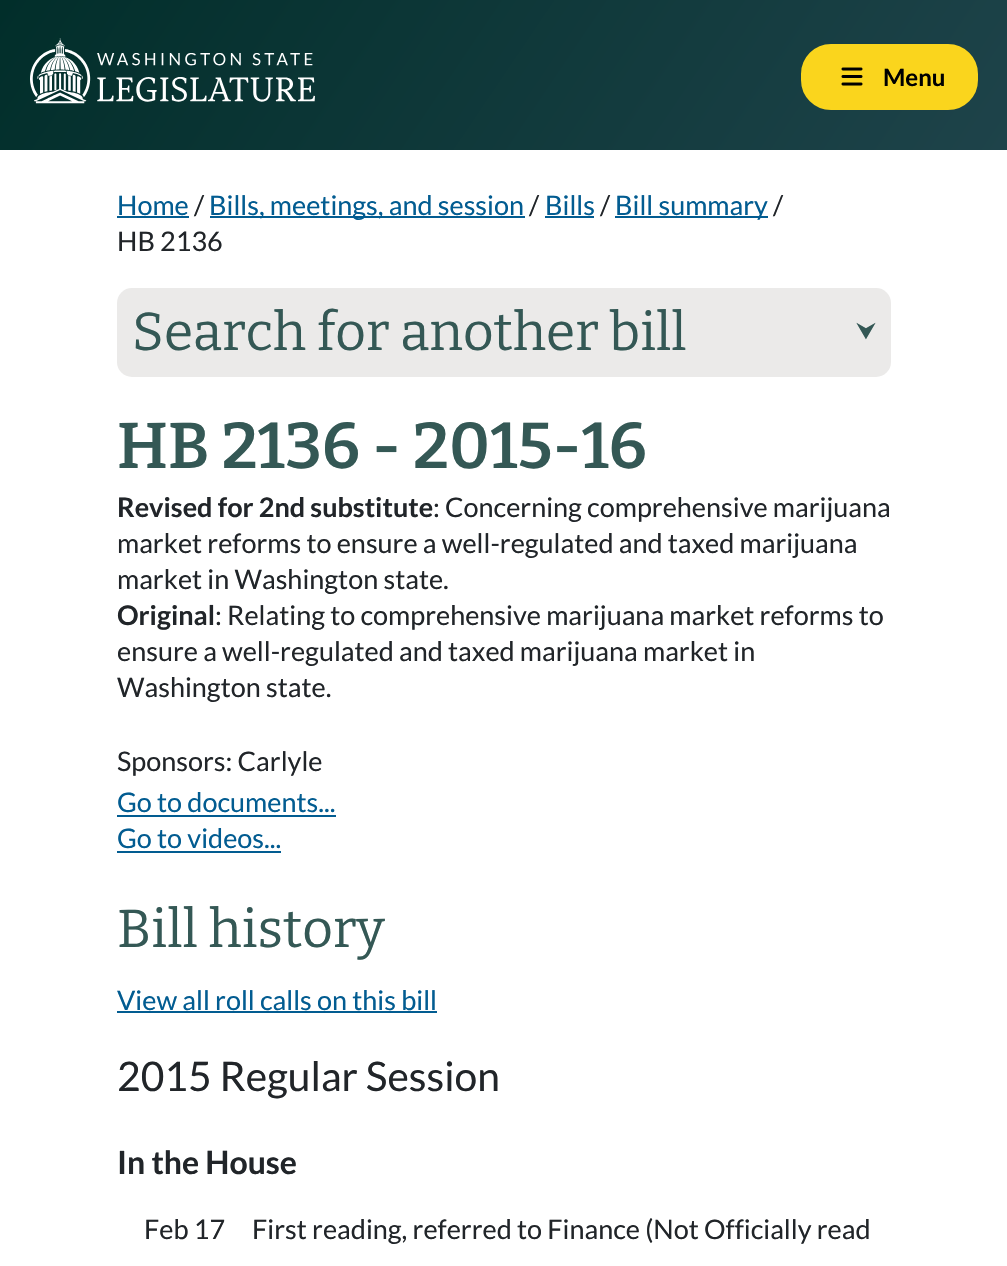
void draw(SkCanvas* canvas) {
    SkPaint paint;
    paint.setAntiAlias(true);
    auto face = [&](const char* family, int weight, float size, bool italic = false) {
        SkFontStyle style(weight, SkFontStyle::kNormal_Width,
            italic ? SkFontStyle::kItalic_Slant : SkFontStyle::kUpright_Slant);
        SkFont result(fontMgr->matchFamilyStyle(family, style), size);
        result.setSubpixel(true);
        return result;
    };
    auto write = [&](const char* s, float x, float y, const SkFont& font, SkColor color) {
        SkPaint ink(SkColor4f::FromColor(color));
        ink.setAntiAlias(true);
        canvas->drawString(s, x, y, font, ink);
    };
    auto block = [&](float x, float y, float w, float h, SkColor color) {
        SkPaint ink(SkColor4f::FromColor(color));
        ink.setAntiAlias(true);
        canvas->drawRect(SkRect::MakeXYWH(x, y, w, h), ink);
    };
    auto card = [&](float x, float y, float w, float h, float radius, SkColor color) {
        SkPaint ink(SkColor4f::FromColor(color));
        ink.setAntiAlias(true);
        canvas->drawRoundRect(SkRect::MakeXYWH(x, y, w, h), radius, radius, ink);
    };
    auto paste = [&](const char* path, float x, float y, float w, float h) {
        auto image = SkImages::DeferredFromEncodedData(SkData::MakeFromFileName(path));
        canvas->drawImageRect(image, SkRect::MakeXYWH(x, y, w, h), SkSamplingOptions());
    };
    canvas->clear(SK_ColorWHITE);
    {
        const SkColor colors[] = {SkColorSetRGB(30, 67, 74), SkColorSetRGB(1, 46, 42)};
        const float stops[] = {0, 1};
        const SkPoint ends[] = {{885, 332}, {123, -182}};
        paint.setShader(SkGradientShader::MakeLinear(ends, colors, stops, 2, SkTileMode::kClamp));
        paint.setAlpha(255);
    }
    canvas->drawRect(SkRect::MakeXYWH(0, 0, 1007, 150), paint);
    paste("pic1.png", 30, 38, 285, 66);
    paint.setShader(nullptr);
    paint.setColor(SkColorSetRGB(250, 213, 29));
    canvas->drawRoundRect(SkRect::MakeXYWH(802.5f, 45.5f, 174, 63), 28.5f, 28.5f, paint);
    paint.setStyle(SkPaint::kStroke_Style);
    paint.setStrokeWidth(3);
    canvas->drawRoundRect(SkRect::MakeXYWH(802.5f, 45.5f, 174, 63), 28.5f, 28.5f, paint);
    paste("pic2.png", 841, 67, 22, 19);
    auto kFont1 = face("Lato", 700, 24);
    write("Menu", 883, 86, kFont1, SK_ColorBLACK);
    auto kFont2 = face("Lato", 400, 27);
    write("Home", 117, 215, kFont2, SkColorSetRGB(2, 92, 145));
    block(117, 216, 72, 2, SkColorSetRGB(2, 92, 145));
    write("/", 194, 215, kFont2, SkColorSetRGB(33, 37, 41));
    block(210, 216, 315, 2, SkColorSetRGB(2, 92, 145));
    write("Bills, meetings, and session", 209, 215, kFont2, SkColorSetRGB(2, 92, 145));
    write("/", 529, 215, kFont2, SkColorSetRGB(33, 37, 41));
    write("Bills", 545, 215, kFont2, SkColorSetRGB(2, 92, 145));
    block(545, 216, 49, 2, SkColorSetRGB(2, 92, 145));
    write("/", 600, 215, kFont2, SkColorSetRGB(33, 37, 41));
    block(615, 216, 153, 2, SkColorSetRGB(2, 92, 145));
    write("Bill summary", 615, 215, kFont2, SkColorSetRGB(2, 92, 145));
    write("/", 773, 215, kFont2, SkColorSetRGB(33, 37, 41));
    write("HB 2136", 117, 251, kFont2, SkColorSetRGB(33, 37, 41));
    card(117, 288, 774, 89, 15, SkColorSetRGB(235, 234, 233));
    auto kFont3 = face("Bitter", 400, 53.25f);
    write("Search for another bill", 132, 350, kFont3, SkColorSetRGB(52, 88, 85));
    auto kFont4 = face("FreeSans", 400, 24);
    write("⮟", 856, 339, kFont4, SkColorSetRGB(52, 88, 85));
    auto kFont5 = face("Bitter", 600, 64.5f);
    write("HB 2136 - 2015-16", 117, 468, kFont5, SkColorSetRGB(52, 88, 85));
    auto kFont6 = face("Lato", 700, 27);
    write("Revised for 2nd substitute", 117, 517, kFont6, SkColorSetRGB(33, 37, 41));
    write(": Concerning comprehensive marijuana", 433, 517, kFont2, SkColorSetRGB(33, 37, 41));
    write("market reforms to ensure a well-regulated and taxed marijuana", 117, 553, kFont2, SkColorSetRGB(33, 37, 41));
    write("market in Washington state.", 117, 589, kFont2, SkColorSetRGB(33, 37, 41));
    write("Original", 117, 625, kFont6, SkColorSetRGB(33, 37, 41));
    write(": Relating to comprehensive marijuana market reforms to", 215, 625, kFont2, SkColorSetRGB(33, 37, 41));
    write("ensure a well-regulated and taxed marijuana market in", 117, 661, kFont2, SkColorSetRGB(33, 37, 41));
    write("Washington state.", 117, 697, kFont2, SkColorSetRGB(33, 37, 41));
    write("Sponsors: Carlyle", 117, 771, kFont2, SkColorSetRGB(33, 37, 41));
    write("Go to documents...", 117, 812, kFont2, SkColorSetRGB(2, 92, 145));
    block(117, 815, 219, 2, SkColorSetRGB(2, 92, 145));
    write("Go to videos...", 117, 848, kFont2, SkColorSetRGB(2, 92, 145));
    block(117, 851, 164, 2, SkColorSetRGB(2, 92, 145));
    write("Bill history", 117, 947, kFont3, SkColorSetRGB(52, 88, 85));
    write("View all roll calls on this bill", 117, 1010, kFont2, SkColorSetRGB(2, 92, 145));
    block(117, 1011, 320, 2, SkColorSetRGB(2, 92, 145));
    auto kFont7 = face("Lato", 400, 40.75f);
    write("2015 Regular Session", 117, 1091, kFont7, SkColorSetRGB(33, 37, 41));
    auto kFont8 = face("Lato", 700, 32);
    write("In the House", 117, 1174, kFont8, SkColorSetRGB(33, 37, 41));
    write("Feb 17", 144, 1239, kFont2, SkColorSetRGB(33, 37, 41));
    write("First reading, referred to Finance (Not Officially read", 252, 1239, kFont2, SkColorSetRGB(33, 37, 41));
}
